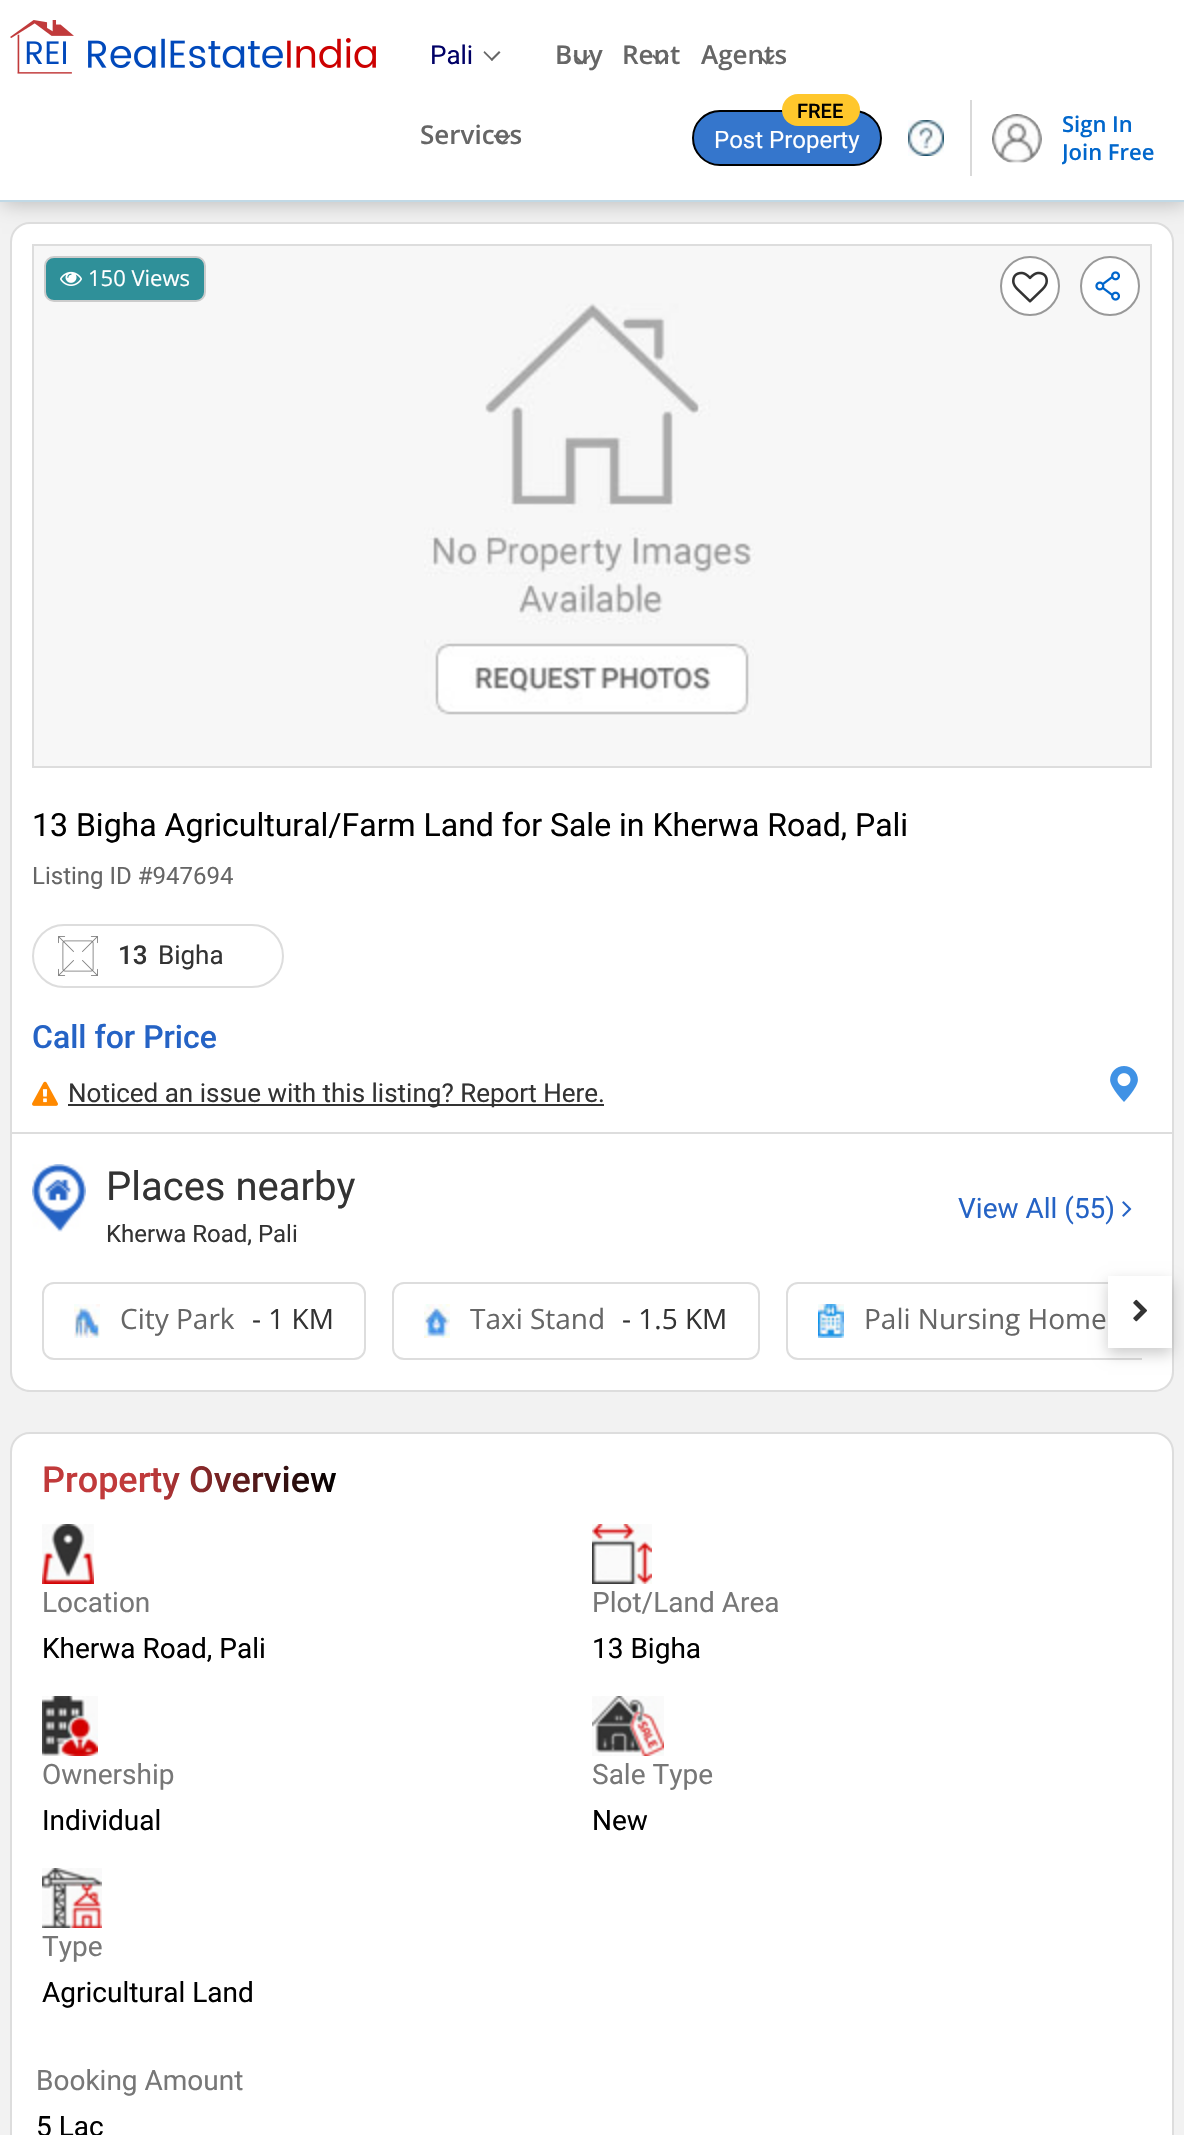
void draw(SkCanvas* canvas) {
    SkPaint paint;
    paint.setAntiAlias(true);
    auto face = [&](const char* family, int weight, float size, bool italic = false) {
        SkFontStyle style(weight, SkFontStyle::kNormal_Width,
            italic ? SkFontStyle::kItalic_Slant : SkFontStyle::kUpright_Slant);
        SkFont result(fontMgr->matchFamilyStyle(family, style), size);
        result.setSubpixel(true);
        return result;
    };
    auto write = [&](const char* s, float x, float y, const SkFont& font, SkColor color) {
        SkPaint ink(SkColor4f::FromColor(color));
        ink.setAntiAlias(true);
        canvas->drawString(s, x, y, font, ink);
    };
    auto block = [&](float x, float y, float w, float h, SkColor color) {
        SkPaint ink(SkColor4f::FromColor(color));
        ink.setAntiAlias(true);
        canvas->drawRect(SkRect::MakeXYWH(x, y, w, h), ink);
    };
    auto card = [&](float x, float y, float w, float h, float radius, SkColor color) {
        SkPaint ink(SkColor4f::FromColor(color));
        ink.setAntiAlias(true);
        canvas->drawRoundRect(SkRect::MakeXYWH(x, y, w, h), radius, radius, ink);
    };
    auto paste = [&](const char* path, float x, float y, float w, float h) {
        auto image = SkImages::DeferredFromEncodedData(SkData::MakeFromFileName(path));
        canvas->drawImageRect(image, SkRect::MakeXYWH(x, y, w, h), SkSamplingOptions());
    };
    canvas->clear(SkColorSetRGB(242, 242, 242));
    paint.setColor(SkColorSetRGB(187, 187, 187));
    paint.setMaskFilter(SkMaskFilter::MakeBlur(kNormal_SkBlurStyle, 10));
    canvas->drawRect(SkRect::MakeXYWH(2, 2, 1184, 202), paint);
    paint.setMaskFilter(nullptr);
    block(0, 0, 1184, 200, SK_ColorWHITE);
    block(0, 200, 1184, 2, SkColorSetRGB(193, 217, 230));
    paste("pic1.png", 10, 20, 64, 54);
    paste("pic2.png", 88, 38, 288, 30);
    auto kFont1 = face("Roboto", 400, 26);
    write("Pali", 430, 64, kFont1, SkColorSetRGB(0, 0, 102));
    paint.setColor(SkColorSetRGB(102, 102, 102));
    canvas->drawPath(SkPathBuilder().moveTo(500.5f, 52.5f).lineTo(492, 61).lineTo(490.5f, 59.5f).lineTo(499, 51).close().detach(), paint);
    canvas->drawPath(SkPathBuilder().moveTo(493, 59.5f).lineTo(492, 61).lineTo(483.5f, 52.5f).lineTo(484.5f, 51).close().detach(), paint);
    auto kFont2 = face("Open Sans", 600, 26);
    write("Buy", 555, 64, kFont2, SkColorSetRGB(102, 102, 102));
    canvas->drawPath(SkPathBuilder().moveTo(590.5f, 56).lineTo(582, 64.5f).lineTo(581, 63).lineTo(589.5f, 54.5f).close().detach(), paint);
    canvas->drawPath(SkPathBuilder().moveTo(583.5f, 63).lineTo(582, 64.5f).lineTo(573.5f, 56).lineTo(575, 54.5f).close().detach(), paint);
    write("Rent", 622, 64, kFont2, SkColorSetRGB(102, 102, 102));
    canvas->drawPath(SkPathBuilder().moveTo(669, 56).lineTo(660.5f, 64.5f).lineTo(659, 63).lineTo(667.5f, 54.5f).close().detach(), paint);
    canvas->drawPath(SkPathBuilder().moveTo(662, 63).lineTo(660.5f, 64.5f).lineTo(652, 56).lineTo(653.5f, 54.5f).close().detach(), paint);
    write("Agents", 701, 64, kFont2, SkColorSetRGB(102, 102, 102));
    canvas->drawPath(SkPathBuilder().moveTo(775, 56).lineTo(766.5f, 64.5f).lineTo(765, 63).lineTo(773.5f, 54.5f).close().detach(), paint);
    canvas->drawPath(SkPathBuilder().moveTo(768, 63).lineTo(766.5f, 64.5f).lineTo(758, 56).lineTo(759.5f, 54.5f).close().detach(), paint);
    write("Services", 420, 144, kFont2, SkColorSetRGB(102, 102, 102));
    canvas->drawPath(SkPathBuilder().moveTo(510.5f, 136).lineTo(502, 144.5f).lineTo(501, 143).lineTo(509.5f, 134.5f).close().detach(), paint);
    canvas->drawPath(SkPathBuilder().moveTo(503.5f, 143).lineTo(502, 144.5f).lineTo(493.5f, 136).lineTo(495, 134.5f).close().detach(), paint);
    paint.setColor(SkColorSetRGB(53, 118, 204));
    canvas->drawRoundRect(SkRect::MakeXYWH(693, 111, 188, 54), 27, 27, paint);
    paint.setStyle(SkPaint::kStroke_Style);
    paint.setStrokeWidth(2);
    paint.setColor(SK_ColorBLACK);
    canvas->drawRoundRect(SkRect::MakeXYWH(693, 111, 188, 54), 27, 27, paint);
    card(782, 94, 78, 32, 16, SkColorSetRGB(255, 199, 44));
    auto kFont3 = face("Roboto", 500, 20);
    write("FREE", 797, 118, kFont3, SK_ColorBLACK);
    auto kFont4 = face("Roboto", 400, 24);
    write("Post Property", 714, 148, kFont4, SK_ColorWHITE);
    paste("pic3.png", 908, 120, 36, 36);
    block(970, 100, 2, 76, SkColorSetRGB(217, 217, 217));
    paste("pic4.png", 992, 114, 50, 49);
    auto kFont5 = face("Open Sans", 600, 22);
    write("Sign In", 1062, 132, kFont5, SkColorSetRGB(1, 103, 204));
    canvas->save();
    canvas->clipRect(SkRect::MakeXYWH(1062, 138, 92, 28));
    write("Join Free", 1062, 160, kFont5, SkColorSetRGB(1, 103, 204));
    canvas->restore();
    paint.setStyle(SkPaint::kFill_Style);
    paint.setColor(SK_ColorWHITE);
    canvas->drawPath(SkPathBuilder().moveTo(30, 223).lineTo(1154, 223).cubicTo(1164.5f, 223, 1173, 231.5f, 1173, 242).lineTo(1173, 1133).lineTo(11, 1133).lineTo(11, 242).cubicTo(11, 231.5f, 19.5f, 223, 30, 223).close().detach(), paint);
    paint.setStyle(SkPaint::kStroke_Style);
    paint.setColor(SkColorSetRGB(221, 221, 221));
    canvas->drawPath(SkPathBuilder().moveTo(30, 223).lineTo(1154, 223).cubicTo(1164.5f, 223, 1173, 231.5f, 1173, 242).lineTo(1173, 1133).lineTo(11, 1133).lineTo(11, 242).cubicTo(11, 231.5f, 19.5f, 223, 30, 223).close().detach(), paint);
    paint.setStyle(SkPaint::kFill_Style);
    paint.setColor(SkColorSetRGB(247, 247, 247));
    canvas->drawRect(SkRect::MakeXYWH(33, 245, 1118, 522), paint);
    paint.setStyle(SkPaint::kStroke_Style);
    paint.setColor(SkColorSetRGB(221, 221, 221));
    canvas->drawRect(SkRect::MakeXYWH(33, 245, 1118, 522), paint);
    paint.setStyle(SkPaint::kFill_Style);
    paint.setColor(SkColorSetRGB(47, 144, 153));
    canvas->drawRoundRect(SkRect::MakeXYWH(45, 257, 160, 44), 9, 9, paint);
    paint.setStyle(SkPaint::kStroke_Style);
    paint.setColor(SkColorSetRGB(204, 204, 204));
    canvas->drawRoundRect(SkRect::MakeXYWH(45, 257, 160, 44), 9, 9, paint);
    paste("pic5.png", 60, 271, 22, 15);
    auto kFont6 = face("Open Sans", 400, 22);
    write("150 Views", 88, 286, kFont6, SK_ColorWHITE);
    paint.setStyle(SkPaint::kFill_Style);
    paint.setColor(SK_ColorWHITE);
    canvas->drawCircle(1030, 286, 29, paint);
    paint.setStyle(SkPaint::kStroke_Style);
    paint.setColor(SkColorSetRGB(153, 153, 153));
    canvas->drawCircle(1030, 286, 29, paint);
    paste("pic6.png", 1012, 271, 36, 32);
    paint.setStyle(SkPaint::kFill_Style);
    paint.setColor(SK_ColorWHITE);
    canvas->drawCircle(1110, 286, 29, paint);
    paint.setStyle(SkPaint::kStroke_Style);
    paint.setColor(SkColorSetRGB(153, 153, 153));
    canvas->drawCircle(1110, 286, 29, paint);
    paste("pic7.png", 1095, 271, 25, 30);
    paste("pic8.png", 424, 303, 331, 412);
    auto kFont7 = face("Roboto", 400, 32);
    write("13 Bigha Agricultural/Farm Land for Sale in Kherwa Road, Pali", 32, 836, kFont7, SK_ColorBLACK);
    write("Listing ID #947694", 32, 884, kFont4, SkColorSetRGB(102, 102, 102));
    paint.setColor(SkColorSetRGB(221, 221, 221));
    canvas->drawRoundRect(SkRect::MakeXYWH(33, 925, 250, 62), 31, 31, paint);
    paste("pic9.png", 58, 936, 40, 40);
    auto kFont8 = face("Roboto", 500, 26);
    write("13", 118, 964, kFont8, SkColorSetRGB(51, 51, 51));
    write("Bigha", 158, 964, kFont1, SkColorSetRGB(51, 51, 51));
    auto kFont9 = face("Roboto", 500, 32);
    write("Call for Price", 32, 1048, kFont9, SkColorSetRGB(37, 99, 197));
    paste("pic10.png", 1110, 1066, 28, 36);
    paste("pic11.png", 32, 1081, 26, 25);
    block(68, 1104, 536, 2, SkColorSetRGB(51, 51, 51));
    write("Noticed an issue with this listing? Report Here.", 68, 1102, kFont1, SkColorSetRGB(51, 51, 51));
    paint.setStyle(SkPaint::kFill_Style);
    paint.setColor(SK_ColorWHITE);
    canvas->drawPath(SkPathBuilder().moveTo(12, 1134).lineTo(1172, 1134).lineTo(1172, 1372).cubicTo(1172, 1382, 1164, 1390, 1154, 1390).lineTo(30, 1390).cubicTo(20, 1390, 12, 1382, 12, 1372).close().detach(), paint);
    paint.setColor(SkColorSetRGB(221, 221, 221));
    canvas->drawPath(SkPathBuilder(SkPathFillType::kEvenOdd).moveTo(10, 1134).lineTo(1174, 1134).lineTo(1174, 1372).cubicTo(1174, 1383, 1165, 1392, 1154, 1392).lineTo(30, 1392).cubicTo(19, 1392, 10, 1383, 10, 1372).close().moveTo(12, 1134).lineTo(1172, 1134).lineTo(1172, 1372).cubicTo(1172, 1382, 1164, 1390, 1154, 1390).lineTo(30, 1390).cubicTo(20, 1390, 12, 1382, 12, 1372).close().detach(), paint);
    paste("pic12.png", 32, 1164, 54, 68);
    auto kFont10 = face("Roboto", 400, 40);
    write("Places nearby", 106, 1200, kFont10, SkColorSetRGB(51, 51, 51));
    write("Kherwa Road, Pali", 106, 1242, kFont4, SkColorSetRGB(51, 51, 51));
    auto kFont11 = face("Roboto", 400, 28);
    write("View All (55)", 958, 1218, kFont11, SkColorSetRGB(37, 99, 197));
    paste("pic13.png", 1122, 1201, 10, 16);
    paint.setStyle(SkPaint::kStroke_Style);
    canvas->drawRoundRect(SkRect::MakeXYWH(43, 1283, 322, 76), 11, 11, paint);
    paste("pic14.png", 74, 1304, 26, 34);
    auto kFont12 = face("Open Sans", 400, 28);
    write("City Park", 120, 1329, kFont12, SkColorSetRGB(102, 102, 102));
    write("- 1 KM", 252, 1329, kFont12, SkColorSetRGB(51, 51, 51));
    canvas->drawRoundRect(SkRect::MakeXYWH(393, 1283, 366, 76), 11, 11, paint);
    paste("pic15.png", 424, 1304, 26, 34);
    write("Taxi Stand", 470, 1329, kFont12, SkColorSetRGB(102, 102, 102));
    write("- 1.5 KM", 622, 1329, kFont12, SkColorSetRGB(51, 51, 51));
    canvas->save();
    canvas->clipRect(SkRect::MakeXYWH(42, 1282, 1100, 78));
    canvas->drawRoundRect(SkRect::MakeXYWH(787, 1283, 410, 76), 11, 11, paint);
    canvas->restore();
    paste("pic16.png", 818, 1304, 26, 34);
    write("Pali Nursing Home", 864, 1329, kFont12, SkColorSetRGB(102, 102, 102));
    paint.setStyle(SkPaint::kFill_Style);
    paint.setColor(SkColorSetARGB(51, 0, 0, 0));
    paint.setMaskFilter(SkMaskFilter::MakeBlur(kNormal_SkBlurStyle, 7));
    canvas->drawRect(SkRect::MakeXYWH(1108, 1282, 64, 72), paint);
    paint.setMaskFilter(nullptr);
    block(1108, 1276, 64, 72, SK_ColorWHITE);
    paste("pic17.png", 1133, 1299, 14, 23);
    paint.setColor(SK_ColorWHITE);
    canvas->drawRoundRect(SkRect::MakeXYWH(11, 1433, 1162, 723), 19, 19, paint);
    paint.setStyle(SkPaint::kStroke_Style);
    paint.setColor(SkColorSetRGB(221, 221, 221));
    canvas->drawRoundRect(SkRect::MakeXYWH(11, 1433, 1162, 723), 19, 19, paint);
    auto kFont13 = face("Roboto", 500, 36);
    paint.setStyle(SkPaint::kFill_Style);
    {
        const SkColor colors[] = {SkColorSetRGB(193, 58, 59), SK_ColorBLACK};
        const float stops[] = {0.35f, 1};
        const SkPoint ends[] = {{42, 1479}, {337, 1479}};
        paint.setShader(SkGradientShader::MakeLinear(ends, colors, stops, 2, SkTileMode::kClamp));
        paint.setAlpha(255);
    }
    canvas->drawString("Property Overview", 42, 1492, kFont13, paint);
    paste("pic18.png", 42, 1524, 52, 60);
    write("Location", 42, 1612, kFont11, SkColorSetRGB(119, 119, 119));
    write("Kherwa Road, Pali", 42, 1658, kFont11, SK_ColorBLACK);
    paste("pic19.png", 592, 1524, 60, 60);
    write("Plot/Land Area", 592, 1612, kFont11, SkColorSetRGB(119, 119, 119));
    write("13 Bigha", 592, 1658, kFont11, SK_ColorBLACK);
    paste("pic20.png", 42, 1696, 56, 60);
    write("Ownership", 42, 1784, kFont11, SkColorSetRGB(119, 119, 119));
    write("Individual", 42, 1830, kFont11, SK_ColorBLACK);
    paste("pic21.png", 592, 1696, 72, 60);
    write("Sale Type", 592, 1784, kFont11, SkColorSetRGB(119, 119, 119));
    write("New", 592, 1830, kFont11, SK_ColorBLACK);
    paste("pic22.png", 42, 1868, 60, 60);
    write("Type", 42, 1956, kFont11, SkColorSetRGB(119, 119, 119));
    write("Agricultural Land", 42, 2002, kFont11, SK_ColorBLACK);
    write("Booking Amount", 36, 2090, kFont11, SkColorSetRGB(119, 119, 119));
    write("5 Lac", 36, 2136, kFont11, SK_ColorBLACK);
}
